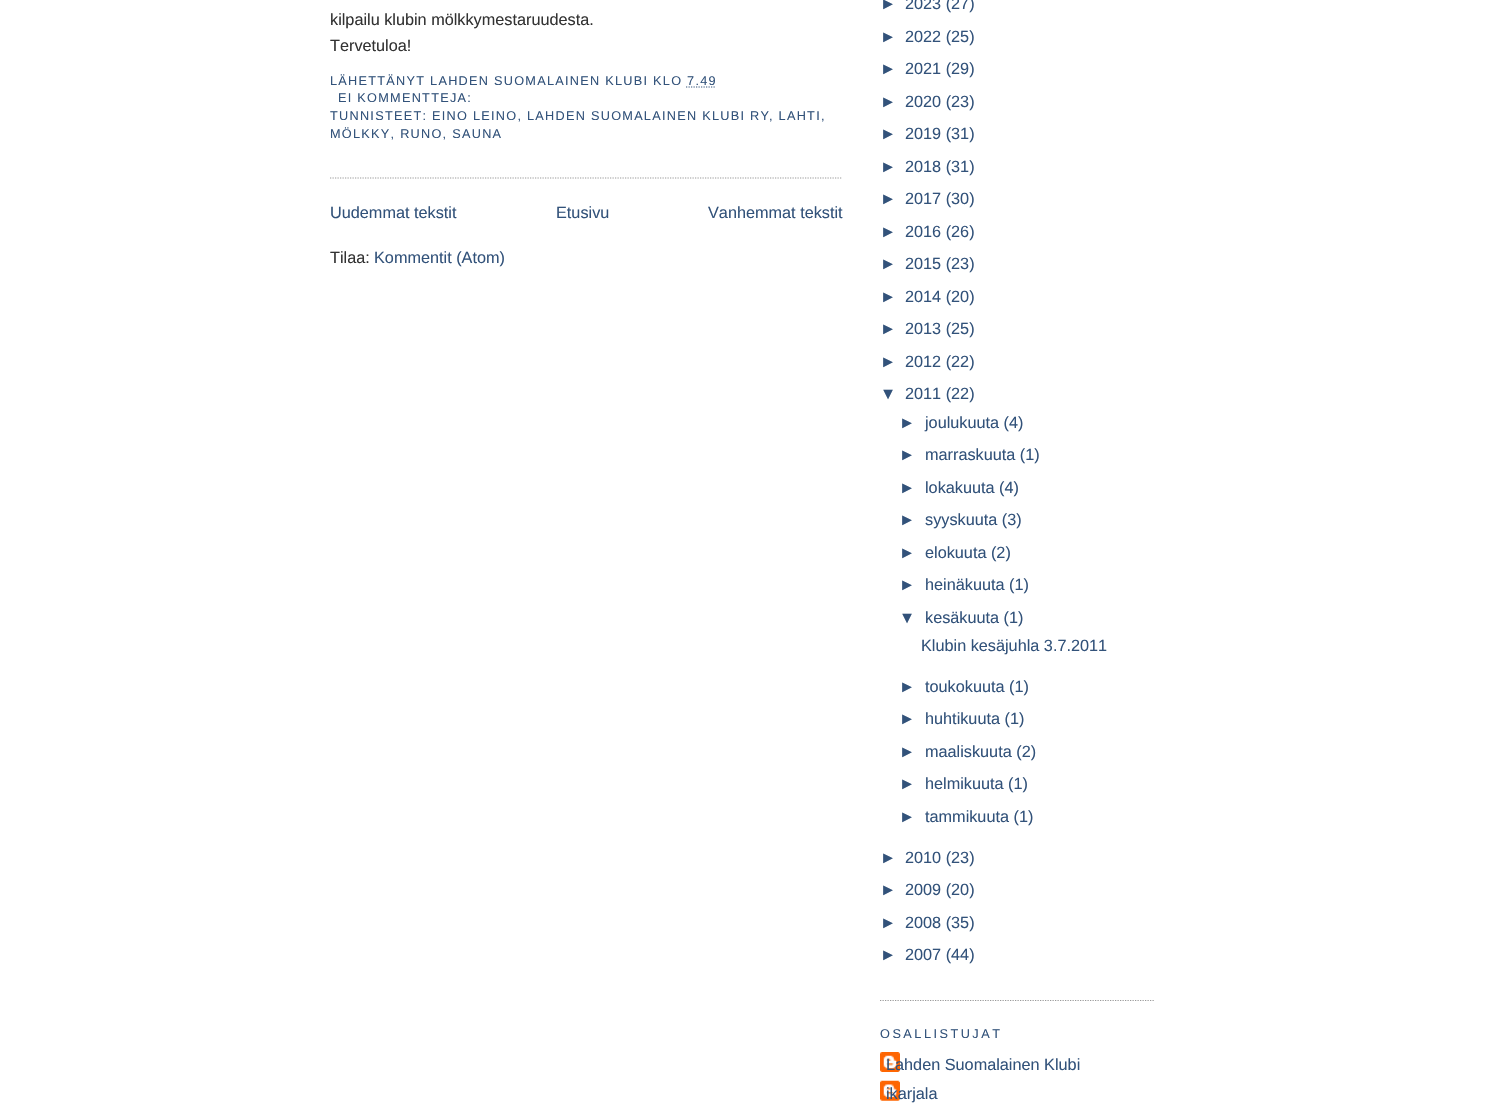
void draw(SkCanvas* canvas) {
    SkPaint paint;
    paint.setAntiAlias(true);
    auto face = [&](const char* family, int weight, float size, bool italic = false) {
        SkFontStyle style(weight, SkFontStyle::kNormal_Width,
            italic ? SkFontStyle::kItalic_Slant : SkFontStyle::kUpright_Slant);
        SkFont result(fontMgr->matchFamilyStyle(family, style), size);
        result.setSubpixel(true);
        return result;
    };
    auto write = [&](const char* s, float x, float y, const SkFont& font, SkColor color) {
        SkPaint ink(SkColor4f::FromColor(color));
        ink.setAntiAlias(true);
        canvas->drawString(s, x, y, font, ink);
    };
    auto writeSpaced = [&](const char* s, float x, float y, const SkFont& font, const SkPaint& ink, float letter, float word) {
        std::vector<SkGlyphID> glyphs(font.countText(s, strlen(s), SkTextEncoding::kUTF8));
        std::vector<float> xs(glyphs.size());
        font.textToGlyphs(s, strlen(s), SkTextEncoding::kUTF8, glyphs);
        font.getXPos(glyphs, xs, x);
        float extra = 0;
        for (size_t i = 0; i < glyphs.size(); i++) {
            xs[i] += extra;
            extra += letter + word * (glyphs[i] == font.unicharToGlyph(' '));
        }
        canvas->drawTextBlob(SkTextBlob::MakeFromPosHGlyphs(glyphs, xs, y, font), 0, 0, ink);
    };
    auto paste = [&](const char* path, float x, float y, float w, float h) {
        auto image = SkImages::DeferredFromEncodedData(SkData::MakeFromFileName(path));
        canvas->drawImageRect(image, SkRect::MakeXYWH(x, y, w, h), SkSamplingOptions());
    };
    canvas->clear(SK_ColorWHITE);
    paint.setStyle(SkPaint::kStroke_Style);
    paint.setStrokeWidth(1.2f);
    paint.setColor(SkColorSetRGB(153, 153, 153));
    paint.setPathEffect(SkDashPathEffect::Make({{1.25f, 1.25f}}, 0));
    canvas->drawPath(SkPathBuilder().moveTo(330, 178).lineTo(842.5f, 178).detach(), paint);
    paint.setPathEffect(nullptr);
    auto kFont1 = face("Liberation Sans", 400, 16.25f);
    write("kilpailu klubin mölkkymestaruudesta.", 330, 25, kFont1, SkColorSetRGB(51, 51, 51));
    write("Tervetuloa!", 330, 51, kFont1, SkColorSetRGB(51, 51, 51));
    auto kFont2 = face("Liberation Sans", 400, 12.7f);
    paint.setStyle(SkPaint::kFill_Style);
    paint.setColor(SkColorSetRGB(50, 82, 122));
    writeSpaced("LÄHETTÄNYT LAHDEN SUOMALAINEN KLUBI KLO 7.49", 330, 85, kFont2, paint, 1.27f, 0);
    paint.setStyle(SkPaint::kStroke_Style);
    paint.setPathEffect(SkDashPathEffect::Make({{1.25f, 1.25f}}, 0));
    canvas->drawPath(SkPathBuilder().moveTo(686, 87).lineTo(715.5f, 87).detach(), paint);
    paint.setPathEffect(nullptr);
    paint.setStyle(SkPaint::kFill_Style);
    writeSpaced("EI KOMMENTTEJA:", 338, 102, kFont2, paint, 1.27f, 0);
    writeSpaced("TUNNISTEET: EINO LEINO, LAHDEN SUOMALAINEN KLUBI RY", 330, 120, kFont2, paint, 1.27f, 0);
    writeSpaced(", LAHTI,", 769, 120, kFont2, paint, 1.27f, 0);
    writeSpaced("MÖLKKY, RUNO, SAUNA", 330, 138, kFont2, paint, 1.27f, 0);
    write("Uudemmat tekstit", 330, 218, kFont1, SkColorSetRGB(50, 82, 122));
    write("Etusivu", 556, 218, kFont1, SkColorSetRGB(50, 82, 122));
    write("Vanhemmat tekstit", 708, 218, kFont1, SkColorSetRGB(50, 82, 122));
    write("Tilaa:", 330, 263, kFont1, SkColorSetRGB(51, 51, 51));
    write("Kommentit (Atom)", 374, 263, kFont1, SkColorSetRGB(50, 82, 122));
    paint.setStyle(SkPaint::kStroke_Style);
    paint.setColor(SkColorSetRGB(153, 153, 153));
    paint.setPathEffect(SkDashPathEffect::Make({{1.25f, 1.25f}}, 0));
    canvas->drawPath(SkPathBuilder().moveTo(880, 1000.5f).lineTo(1155, 1000.5f).detach(), paint);
    paint.setPathEffect(nullptr);
    write("►", 880, 9, kFont1, SkColorSetRGB(50, 82, 122));
    write("2023 (27)", 905, 9, kFont1, SkColorSetRGB(50, 82, 122));
    write("►", 880, 42, kFont1, SkColorSetRGB(50, 82, 122));
    write("2022 (25)", 905, 42, kFont1, SkColorSetRGB(50, 82, 122));
    write("►", 880, 74, kFont1, SkColorSetRGB(50, 82, 122));
    write("2021 (29)", 905, 74, kFont1, SkColorSetRGB(50, 82, 122));
    write("►", 880, 107, kFont1, SkColorSetRGB(50, 82, 122));
    write("2020 (23)", 905, 107, kFont1, SkColorSetRGB(50, 82, 122));
    write("►", 880, 139, kFont1, SkColorSetRGB(50, 82, 122));
    write("2019 (31)", 905, 139, kFont1, SkColorSetRGB(50, 82, 122));
    write("►", 880, 172, kFont1, SkColorSetRGB(50, 82, 122));
    write("2018 (31)", 905, 172, kFont1, SkColorSetRGB(50, 82, 122));
    write("►", 880, 204, kFont1, SkColorSetRGB(50, 82, 122));
    write("2017 (30)", 905, 204, kFont1, SkColorSetRGB(50, 82, 122));
    write("►", 880, 237, kFont1, SkColorSetRGB(50, 82, 122));
    write("2016 (26)", 905, 237, kFont1, SkColorSetRGB(50, 82, 122));
    write("►", 880, 269, kFont1, SkColorSetRGB(50, 82, 122));
    write("2015 (23)", 905, 269, kFont1, SkColorSetRGB(50, 82, 122));
    write("►", 880, 302, kFont1, SkColorSetRGB(50, 82, 122));
    write("2014 (20)", 905, 302, kFont1, SkColorSetRGB(50, 82, 122));
    write("►", 880, 334, kFont1, SkColorSetRGB(50, 82, 122));
    write("2013 (25)", 905, 334, kFont1, SkColorSetRGB(50, 82, 122));
    write("►", 880, 367, kFont1, SkColorSetRGB(50, 82, 122));
    write("2012 (22)", 905, 367, kFont1, SkColorSetRGB(50, 82, 122));
    write("▼", 880, 399, kFont1, SkColorSetRGB(50, 82, 122));
    write("2011 (22)", 905, 399, kFont1, SkColorSetRGB(50, 82, 122));
    write("►", 899, 428, kFont1, SkColorSetRGB(50, 82, 122));
    write("joulukuuta (4)", 925, 428, kFont1, SkColorSetRGB(50, 82, 122));
    write("►", 899, 460, kFont1, SkColorSetRGB(50, 82, 122));
    write("marraskuuta (1)", 925, 460, kFont1, SkColorSetRGB(50, 82, 122));
    write("►", 899, 493, kFont1, SkColorSetRGB(50, 82, 122));
    write("lokakuuta (4)", 925, 493, kFont1, SkColorSetRGB(50, 82, 122));
    write("►", 899, 525, kFont1, SkColorSetRGB(50, 82, 122));
    write("syyskuuta (3)", 925, 525, kFont1, SkColorSetRGB(50, 82, 122));
    write("►", 899, 558, kFont1, SkColorSetRGB(50, 82, 122));
    write("elokuuta (2)", 925, 558, kFont1, SkColorSetRGB(50, 82, 122));
    write("►", 899, 590, kFont1, SkColorSetRGB(50, 82, 122));
    write("heinäkuuta (1)", 925, 590, kFont1, SkColorSetRGB(50, 82, 122));
    write("▼", 899, 623, kFont1, SkColorSetRGB(50, 82, 122));
    write("kesäkuuta (1)", 925, 623, kFont1, SkColorSetRGB(50, 82, 122));
    write("Klubin kesäjuhla 3.7.2011", 921, 651, kFont1, SkColorSetRGB(50, 82, 122));
    write("►", 899, 692, kFont1, SkColorSetRGB(50, 82, 122));
    write("toukokuuta (1)", 925, 692, kFont1, SkColorSetRGB(50, 82, 122));
    write("►", 899, 724, kFont1, SkColorSetRGB(50, 82, 122));
    write("huhtikuuta (1)", 925, 724, kFont1, SkColorSetRGB(50, 82, 122));
    write("►", 899, 757, kFont1, SkColorSetRGB(50, 82, 122));
    write("maaliskuuta (2)", 925, 757, kFont1, SkColorSetRGB(50, 82, 122));
    write("►", 899, 789, kFont1, SkColorSetRGB(50, 82, 122));
    write("helmikuuta (1)", 925, 789, kFont1, SkColorSetRGB(50, 82, 122));
    write("►", 899, 822, kFont1, SkColorSetRGB(50, 82, 122));
    write("tammikuuta (1)", 925, 822, kFont1, SkColorSetRGB(50, 82, 122));
    write("►", 880, 863, kFont1, SkColorSetRGB(50, 82, 122));
    write("2010 (23)", 905, 863, kFont1, SkColorSetRGB(50, 82, 122));
    write("►", 880, 895, kFont1, SkColorSetRGB(50, 82, 122));
    write("2009 (20)", 905, 895, kFont1, SkColorSetRGB(50, 82, 122));
    write("►", 880, 928, kFont1, SkColorSetRGB(50, 82, 122));
    write("2008 (35)", 905, 928, kFont1, SkColorSetRGB(50, 82, 122));
    write("►", 880, 960, kFont1, SkColorSetRGB(50, 82, 122));
    write("2007 (44)", 905, 960, kFont1, SkColorSetRGB(50, 82, 122));
    paint.setStyle(SkPaint::kFill_Style);
    paint.setColor(SkColorSetRGB(50, 82, 122));
    writeSpaced("OSALLISTUJAT", 880, 1038, kFont2, paint, 2.5f, 0);
    paste("pic1.png", 880, 1052, 20, 20);
    write("Lahden Suomalainen Klubi", 886, 1070, kFont1, SkColorSetRGB(50, 82, 122));
    paste("pic2.png", 880, 1080, 20, 21);
    write("ikarjala", 886, 1099, kFont1, SkColorSetRGB(50, 82, 122));
}
